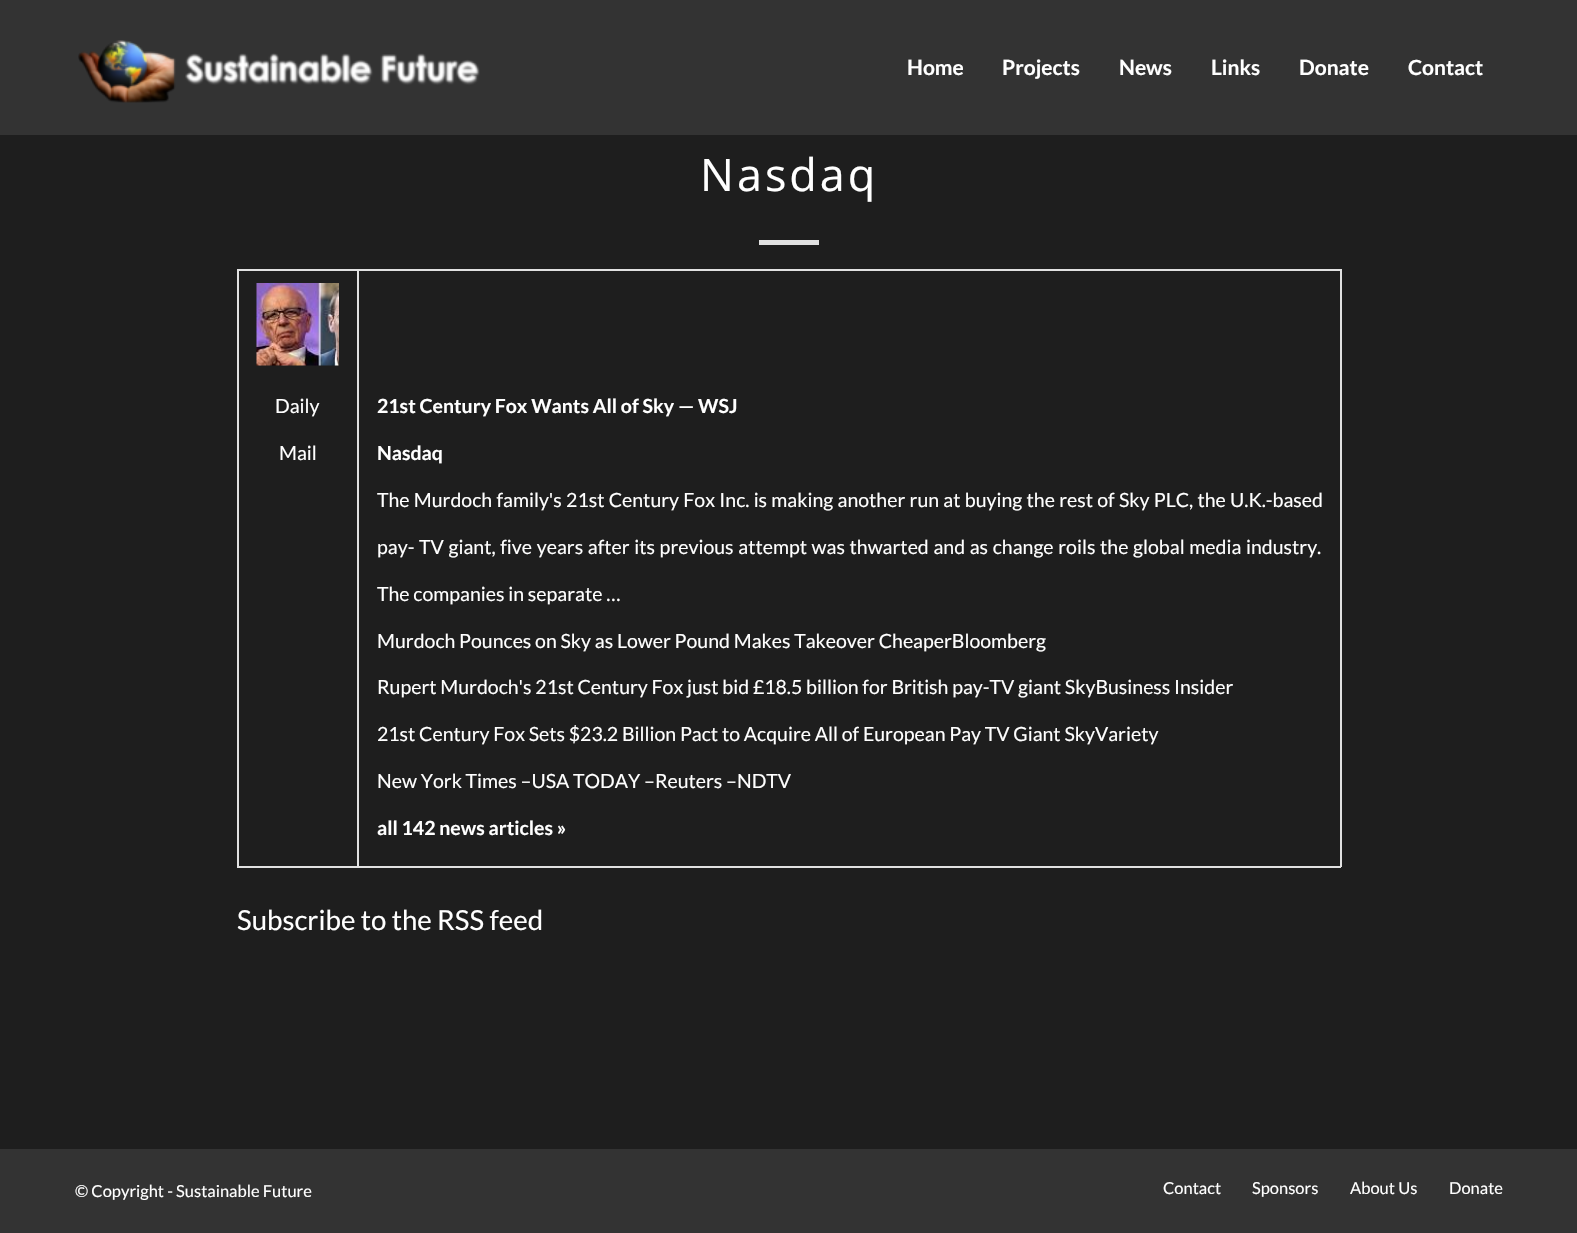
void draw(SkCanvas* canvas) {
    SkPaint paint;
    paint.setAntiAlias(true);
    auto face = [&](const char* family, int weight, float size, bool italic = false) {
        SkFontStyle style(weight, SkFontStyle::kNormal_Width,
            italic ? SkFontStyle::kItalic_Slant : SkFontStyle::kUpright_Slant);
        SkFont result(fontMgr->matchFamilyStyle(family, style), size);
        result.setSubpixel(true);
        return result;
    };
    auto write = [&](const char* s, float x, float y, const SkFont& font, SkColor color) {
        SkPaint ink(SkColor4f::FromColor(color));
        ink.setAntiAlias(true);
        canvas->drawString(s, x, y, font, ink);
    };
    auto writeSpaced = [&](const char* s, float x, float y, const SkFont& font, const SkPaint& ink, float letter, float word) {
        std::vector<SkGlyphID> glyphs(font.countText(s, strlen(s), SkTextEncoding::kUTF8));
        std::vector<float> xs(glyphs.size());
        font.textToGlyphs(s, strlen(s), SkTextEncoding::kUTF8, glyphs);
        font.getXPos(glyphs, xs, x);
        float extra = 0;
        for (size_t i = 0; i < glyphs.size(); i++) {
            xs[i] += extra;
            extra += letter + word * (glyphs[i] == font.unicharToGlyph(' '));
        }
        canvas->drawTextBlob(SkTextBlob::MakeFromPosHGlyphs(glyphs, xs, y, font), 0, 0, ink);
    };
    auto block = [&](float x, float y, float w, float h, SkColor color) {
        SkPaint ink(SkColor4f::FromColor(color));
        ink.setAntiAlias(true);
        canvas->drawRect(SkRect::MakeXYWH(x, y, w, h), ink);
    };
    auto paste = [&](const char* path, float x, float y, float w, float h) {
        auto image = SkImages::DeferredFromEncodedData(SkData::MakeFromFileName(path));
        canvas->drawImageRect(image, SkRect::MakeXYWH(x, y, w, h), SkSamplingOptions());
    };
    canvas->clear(SkColorSetRGB(30, 30, 30));
    block(0, 0, 1577, 135, SkColorSetRGB(51, 51, 51));
    paste("pic1.png", 78, 40, 402, 63);
    auto kFont1 = face("Lato", 700, 21);
    write("Home", 907, 75, kFont1, SK_ColorWHITE);
    write("Projects", 1002, 75, kFont1, SK_ColorWHITE);
    write("News", 1119, 75, kFont1, SK_ColorWHITE);
    write("Links", 1211, 75, kFont1, SK_ColorWHITE);
    write("Donate", 1299, 75, kFont1, SK_ColorWHITE);
    write("Contact", 1408, 75, kFont1, SK_ColorWHITE);
    auto kFont2 = face("Open Sans", 400, 45);
    paint.setColor(SK_ColorWHITE);
    writeSpaced("Nasdaq", 700, 191, kFont2, paint, 3, 0);
    block(759, 240, 60, 5, SkColorSetRGB(225, 225, 225));
    block(237, 269, 1104, 2, SkColorSetRGB(225, 225, 225));
    block(1340, 269, 2, 598, SkColorSetRGB(225, 225, 225));
    block(357, 866, 984, 2, SkColorSetRGB(225, 225, 225));
    block(357, 269, 2, 598, SkColorSetRGB(225, 225, 225));
    block(237, 866, 122, 2, SkColorSetRGB(225, 225, 225));
    block(237, 269, 2, 598, SkColorSetRGB(225, 225, 225));
    paste("pic2.png", 256, 283, 83, 83);
    auto kFont3 = face("Lato", 400, 19.5f);
    write("Daily", 275, 413, kFont3, SK_ColorWHITE);
    write("Mail", 279, 460, kFont3, SK_ColorWHITE);
    auto kFont4 = face("Lato", 700, 19.5f);
    write("21st Century Fox Wants All of Sky — WSJ", 377, 413, kFont4, SK_ColorWHITE);
    write("Nasdaq", 377, 460, kFont4, SK_ColorWHITE);
    writeSpaced("The Murdoch family's 21st Century Fox Inc. is making another run at buying the rest of Sky PLC, the U.K.-based", 377, 507, kFont3, paint, 0, 0.5f);
    writeSpaced("pay- TV giant, five years after its previous attempt was thwarted and as change roils the global media industry.", 377, 554, kFont3, paint, 0, 0.9f);
    write("The companies in separate …", 377, 601, kFont3, SK_ColorWHITE);
    write("Murdoch Pounces on Sky as Lower Pound Makes Takeover CheaperBloomberg", 377, 648, kFont3, SK_ColorWHITE);
    write("Rupert Murdoch's 21st Century Fox just bid £18.5 billion for British pay-TV giant SkyBusiness Insider", 377, 694, kFont3, SK_ColorWHITE);
    write("21st Century Fox Sets $23.2 Billion Pact to Acquire All of European Pay TV Giant SkyVariety", 377, 741, kFont3, SK_ColorWHITE);
    write("New York Times –USA TODAY –Reuters –NDTV", 377, 788, kFont3, SK_ColorWHITE);
    write("all 142 news articles »", 377, 835, kFont4, SK_ColorWHITE);
    auto kFont5 = face("Lato", 400, 27.6f);
    write("Subscribe to the RSS feed", 237, 930, kFont5, SK_ColorWHITE);
    block(0, 1149, 1577, 84, SkColorSetRGB(51, 51, 51));
    auto kFont6 = face("Lato", 400, 16.5f);
    write("© Copyright - Sustainable Future", 75, 1197, kFont6, SK_ColorWHITE);
    write("Contact", 1163, 1194, kFont6, SK_ColorWHITE);
    write("Sponsors", 1252, 1194, kFont6, SK_ColorWHITE);
    write("About Us", 1350, 1194, kFont6, SK_ColorWHITE);
    write("Donate", 1449, 1194, kFont6, SK_ColorWHITE);
}
